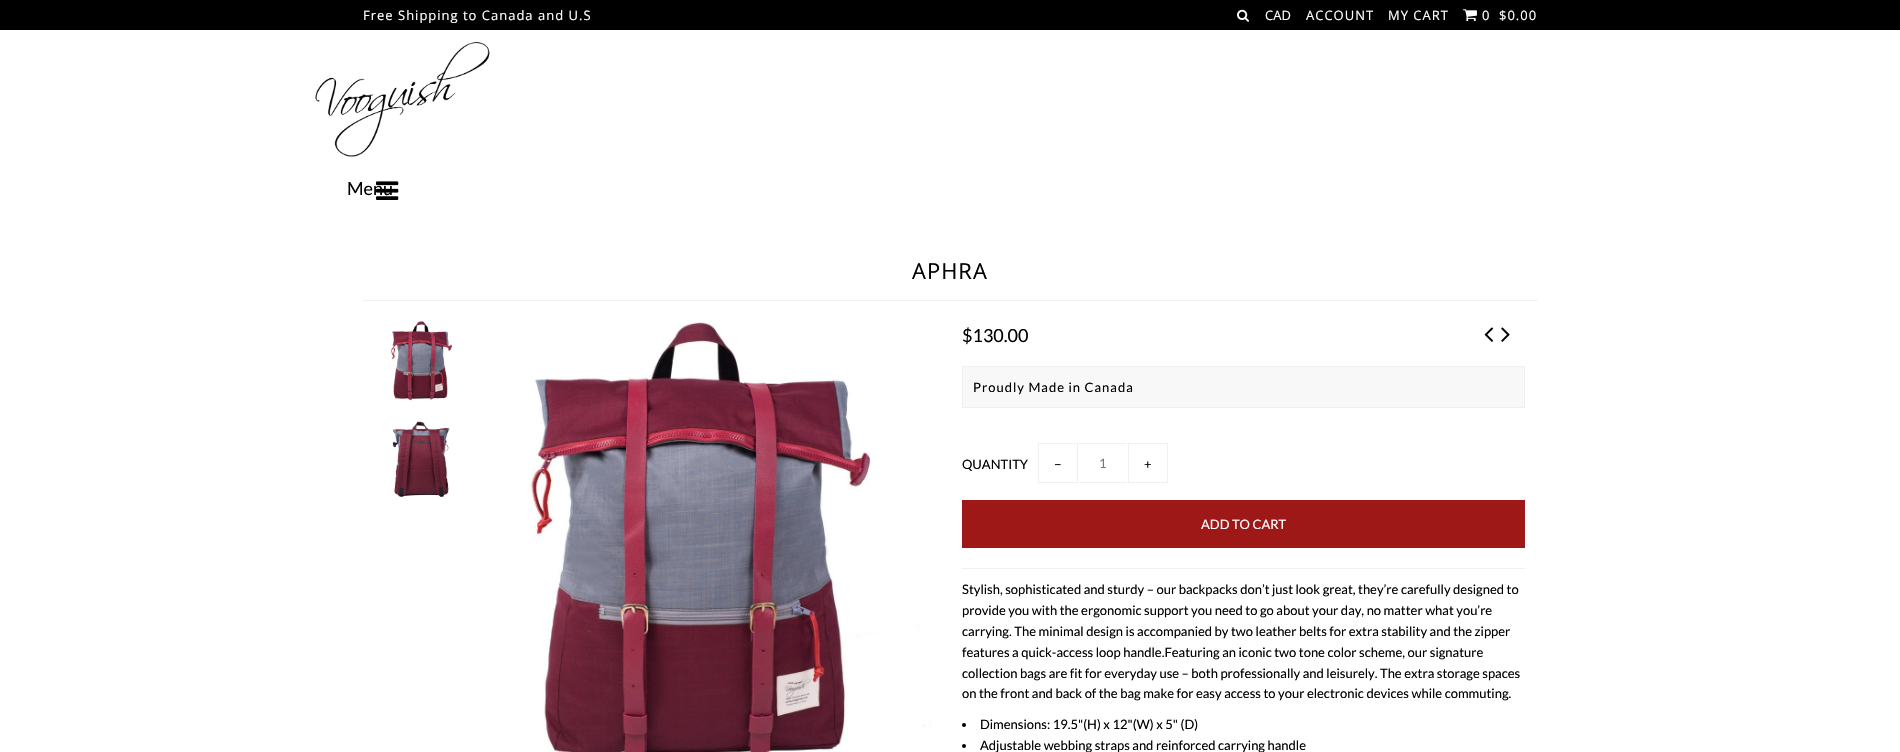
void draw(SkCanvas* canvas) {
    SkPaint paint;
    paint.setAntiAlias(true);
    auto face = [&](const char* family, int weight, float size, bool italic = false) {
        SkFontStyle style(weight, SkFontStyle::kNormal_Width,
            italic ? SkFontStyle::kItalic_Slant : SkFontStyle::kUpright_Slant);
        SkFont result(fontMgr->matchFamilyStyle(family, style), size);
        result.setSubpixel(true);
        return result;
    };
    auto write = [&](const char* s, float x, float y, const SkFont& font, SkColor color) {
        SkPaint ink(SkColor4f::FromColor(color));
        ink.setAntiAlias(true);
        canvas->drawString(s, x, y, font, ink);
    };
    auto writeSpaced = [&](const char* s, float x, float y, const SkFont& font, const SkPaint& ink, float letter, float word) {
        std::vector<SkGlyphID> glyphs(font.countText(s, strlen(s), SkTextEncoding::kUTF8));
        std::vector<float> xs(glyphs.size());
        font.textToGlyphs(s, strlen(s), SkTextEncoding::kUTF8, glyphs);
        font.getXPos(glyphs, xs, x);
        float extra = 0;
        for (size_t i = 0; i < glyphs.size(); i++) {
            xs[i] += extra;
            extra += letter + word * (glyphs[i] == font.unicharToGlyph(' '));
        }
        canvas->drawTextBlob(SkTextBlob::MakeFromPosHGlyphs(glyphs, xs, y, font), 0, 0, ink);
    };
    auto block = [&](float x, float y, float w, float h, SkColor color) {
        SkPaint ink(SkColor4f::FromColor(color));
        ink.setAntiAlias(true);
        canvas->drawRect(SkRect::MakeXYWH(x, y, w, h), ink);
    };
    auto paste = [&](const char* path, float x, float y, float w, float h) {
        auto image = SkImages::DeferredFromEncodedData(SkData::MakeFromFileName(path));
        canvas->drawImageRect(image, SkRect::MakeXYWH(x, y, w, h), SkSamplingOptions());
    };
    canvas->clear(SK_ColorWHITE);
    block(0, 0, 1900, 30, SK_ColorBLACK);
    auto kFont1 = face("Open Sans", 400, 13);
    paint.setColor(SK_ColorWHITE);
    writeSpaced("Free Shipping to Canada and U.S", 363, 20, kFont1, paint, 1, 0);
    paste("pic1.png", 1237, 9, 12, 13);
    write("CAD", 1265, 20, kFont1, SK_ColorWHITE);
    writeSpaced("ACCOUNT", 1306, 20, kFont1, paint, 1, 0);
    writeSpaced("MY CART", 1388, 20, kFont1, paint, 1, 0);
    paste("pic2.png", 1463, 9, 14, 13);
    writeSpaced("0", 1482, 20, kFont1, paint, 1, 0);
    writeSpaced("$0.00", 1499, 20, kFont1, paint, 1, 0);
    paste("pic3.png", 315, 42, 175, 115);
    auto kFont2 = face("Lato", 400, 18);
    write("Menu", 347, 195, kFont2, SK_ColorBLACK);
    paste("pic4.png", 376, 181, 23, 19);
    block(363, 300, 1175, 1, SkColorSetRGB(240, 240, 240));
    auto kFont3 = face("Open Sans", 400, 22);
    paint.setColor(SK_ColorBLACK);
    writeSpaced("APHRA", 912, 279, kFont3, paint, 1, 0);
    paste("pic5.png", 391, 321, 71, 80);
    paste("pic6.png", 392, 421, 58, 77);
    paste("pic7.png", 529, 321, 402, 431);
    write("$130.00", 962, 342, kFont2, SK_ColorBLACK);
    paint.setColor(SkColorSetRGB(248, 248, 248));
    canvas->drawRect(SkRect::MakeXYWH(962.5f, 366.5f, 562, 41), paint);
    paint.setStyle(SkPaint::kStroke_Style);
    paint.setStrokeWidth(1);
    paint.setColor(SkColorSetRGB(240, 240, 240));
    canvas->drawRect(SkRect::MakeXYWH(962.5f, 366.5f, 562, 41), paint);
    auto kFont4 = face("Lato", 400, 13);
    paint.setStyle(SkPaint::kFill_Style);
    paint.setColor(SK_ColorBLACK);
    writeSpaced("Proudly Made in Canada", 973, 392, kFont4, paint, 1, 0);
    block(962, 568, 563, 1, SkColorSetRGB(240, 240, 240));
    write("QUANTITY", 962, 469, kFont4, SK_ColorBLACK);
    paint.setStyle(SkPaint::kStroke_Style);
    paint.setColor(SkColorSetRGB(240, 240, 240));
    canvas->drawRect(SkRect::MakeXYWH(1038.5f, 443.5f, 39, 39), paint);
    write("−", 1054, 469, kFont4, SK_ColorBLACK);
    block(1079, 443, 48, 1, SkColorSetRGB(240, 240, 240));
    block(1079, 482, 48, 1, SkColorSetRGB(240, 240, 240));
    write("1", 1099, 468, kFont4, SkColorSetRGB(119, 119, 119));
    canvas->drawRect(SkRect::MakeXYWH(1128.5f, 443.5f, 39, 39), paint);
    write("+", 1144, 469, kFont4, SK_ColorBLACK);
    block(962, 500, 563, 48, SkColorSetRGB(158, 24, 24));
    write("ADD TO CART", 1201, 529, kFont4, SK_ColorWHITE);
    write("Stylish, sophisticated and sturdy – our backpacks don’t just look great, they’re carefully designed to", 962, 594, kFont4, SK_ColorBLACK);
    write("provide you with the ergonomic support you need to go about your day, no matter what you’re", 962, 615, kFont4, SK_ColorBLACK);
    write("carrying. The minimal design is accompanied by two leather belts for extra stability and the zipper", 962, 636, kFont4, SK_ColorBLACK);
    write("features a quick-access loop handle.Featuring an iconic two tone color scheme, our signature", 962, 657, kFont4, SK_ColorBLACK);
    write("collection bags are fit for everyday use – both professionally and leisurely. The extra storage spaces", 962, 678, kFont4, SK_ColorBLACK);
    write("on the front and back of the bag make for easy access to your electronic devices while commuting.", 962, 698, kFont4, SK_ColorBLACK);
    paint.setStyle(SkPaint::kFill_Style);
    paint.setColor(SK_ColorBLACK);
    canvas->drawCircle(964, 725, 2, paint);
    write("Dimensions: 19.5\"(H) x 12\"(W) x 5\" (D)", 980, 729, kFont4, SK_ColorBLACK);
    canvas->drawCircle(964, 746, 2, paint);
    write("Adjustable webbing straps and reinforced carrying handle", 980, 750, kFont4, SK_ColorBLACK);
    paste("pic8.png", 1484, 327, 10, 15);
    paste("pic9.png", 1501, 327, 9, 15);
}
